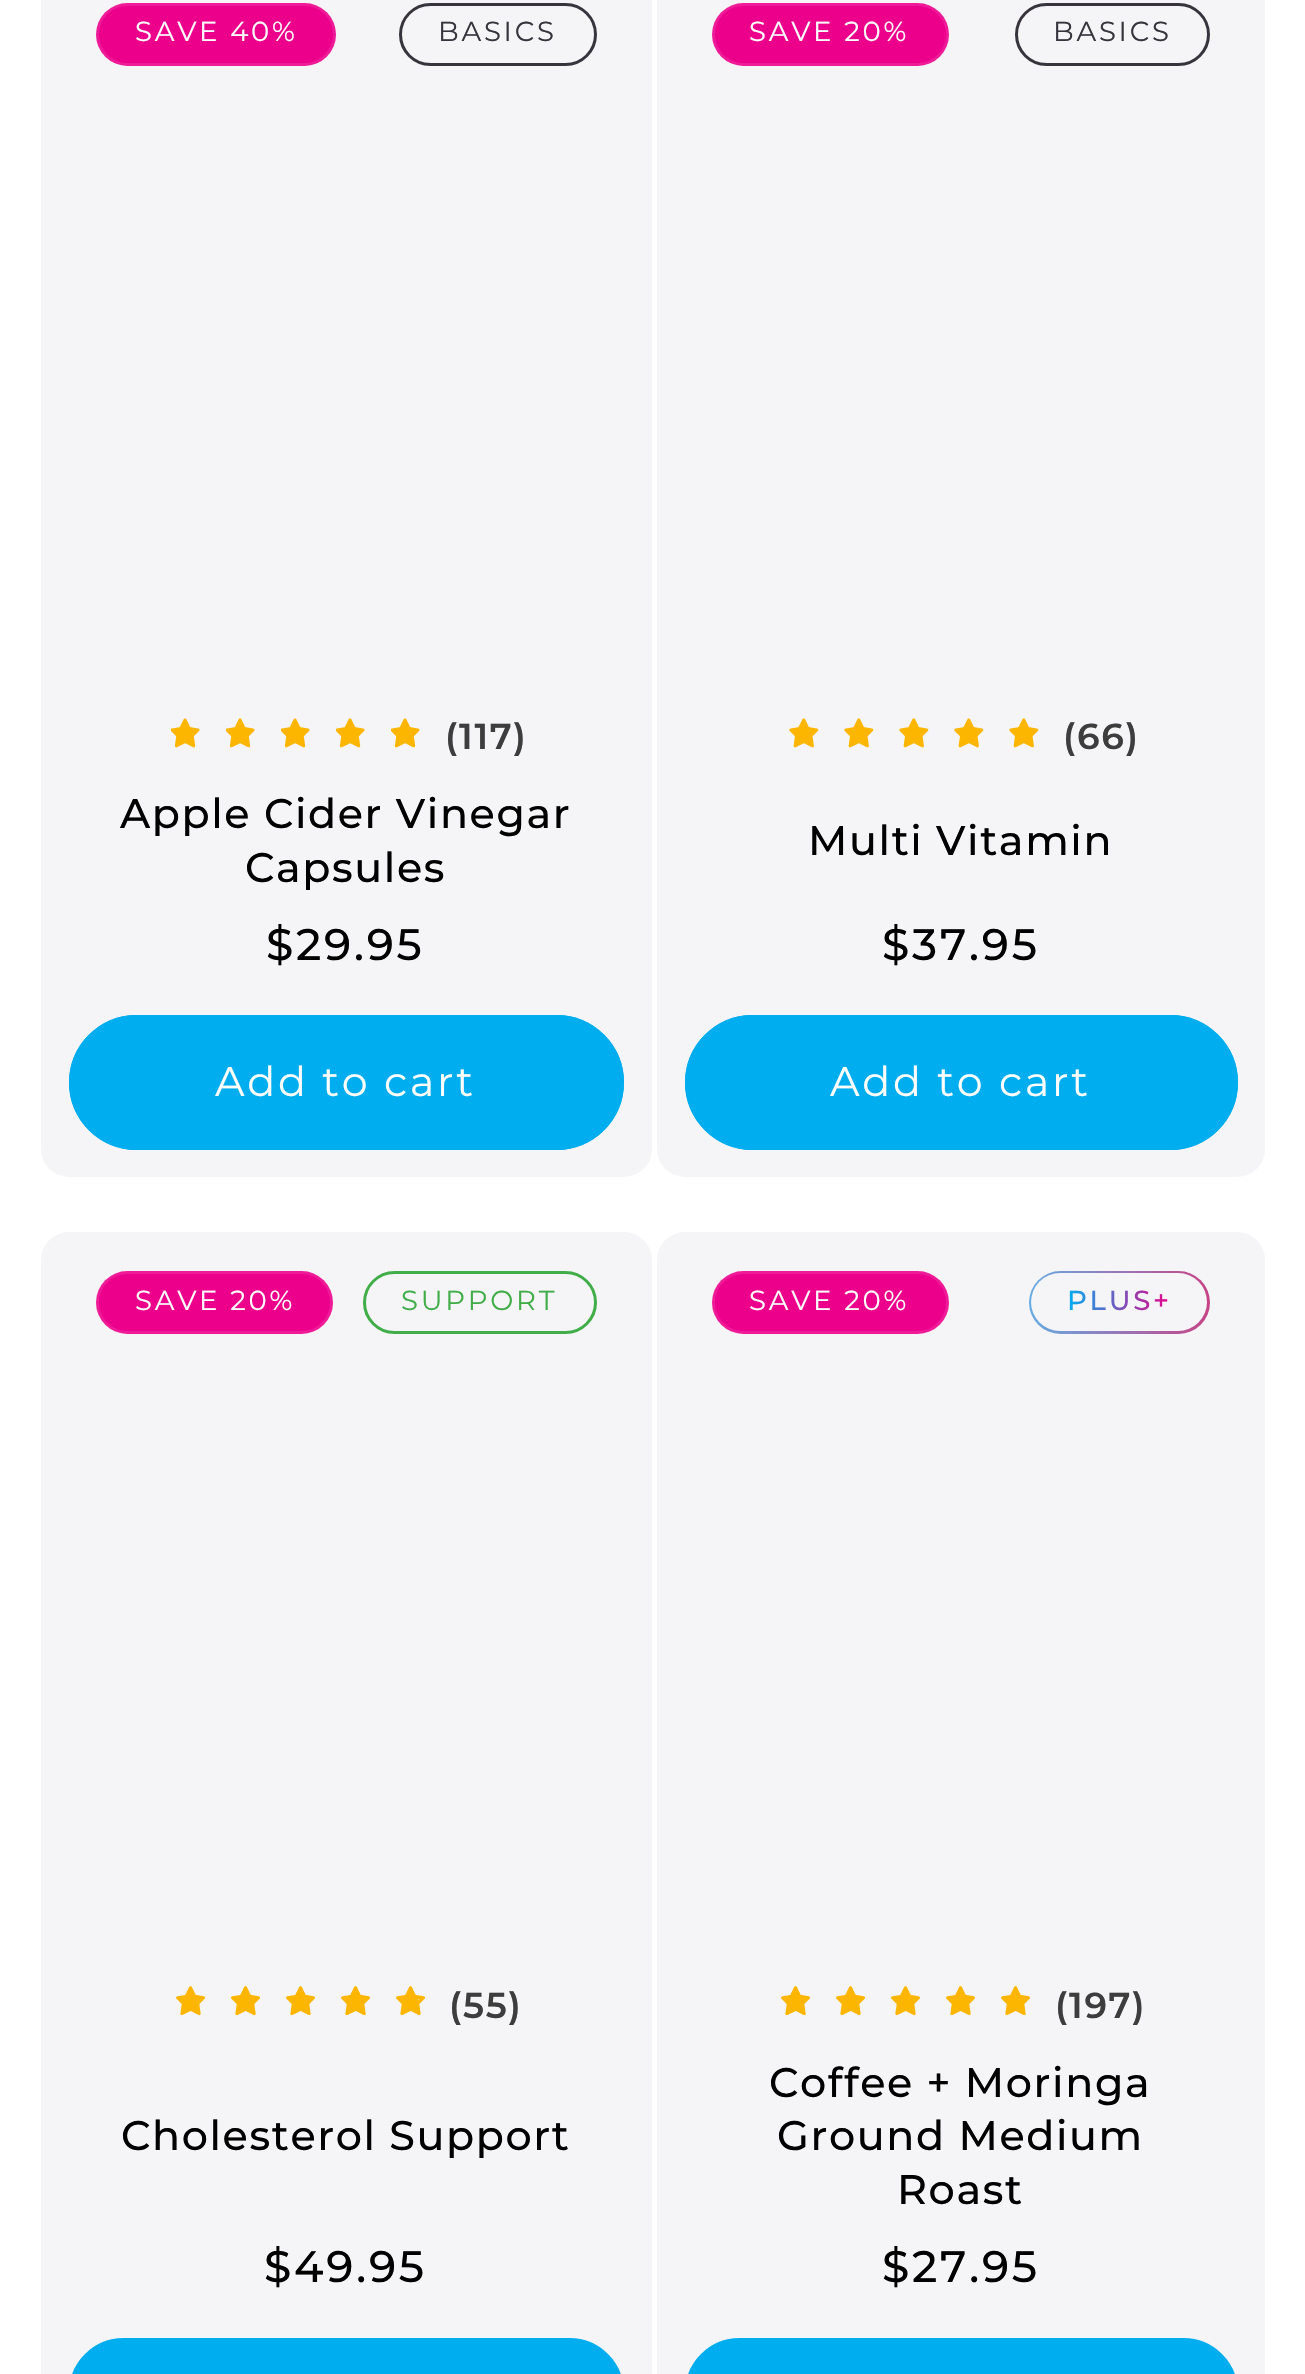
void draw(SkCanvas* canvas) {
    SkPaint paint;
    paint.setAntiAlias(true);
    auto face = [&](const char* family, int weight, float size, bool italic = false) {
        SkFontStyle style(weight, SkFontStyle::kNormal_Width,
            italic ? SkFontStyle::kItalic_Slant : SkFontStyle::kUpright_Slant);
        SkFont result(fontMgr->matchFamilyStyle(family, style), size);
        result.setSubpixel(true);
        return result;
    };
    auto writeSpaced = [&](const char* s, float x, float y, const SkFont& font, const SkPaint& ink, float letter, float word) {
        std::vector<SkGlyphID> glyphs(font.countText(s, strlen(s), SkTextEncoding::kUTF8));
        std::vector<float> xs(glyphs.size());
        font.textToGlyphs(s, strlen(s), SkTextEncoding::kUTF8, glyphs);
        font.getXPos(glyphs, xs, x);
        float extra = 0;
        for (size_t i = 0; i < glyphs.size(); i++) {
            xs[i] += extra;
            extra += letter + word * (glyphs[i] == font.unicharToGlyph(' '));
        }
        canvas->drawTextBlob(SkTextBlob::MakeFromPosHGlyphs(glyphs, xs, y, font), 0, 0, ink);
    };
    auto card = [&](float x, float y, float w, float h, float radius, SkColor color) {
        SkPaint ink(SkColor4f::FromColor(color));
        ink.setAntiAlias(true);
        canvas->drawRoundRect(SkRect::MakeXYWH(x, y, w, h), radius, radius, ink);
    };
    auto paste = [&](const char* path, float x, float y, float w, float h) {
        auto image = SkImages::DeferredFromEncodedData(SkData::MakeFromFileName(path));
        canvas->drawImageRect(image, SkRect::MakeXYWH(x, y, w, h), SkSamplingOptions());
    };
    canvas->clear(SK_ColorWHITE);
    card(41, -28, 611, 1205, 28, SkColorSetRGB(245, 245, 247));
    card(96, 3, 240, 63, 31.5f, SkColorSetRGB(236, 0, 139));
    paint.setStyle(SkPaint::kStroke_Style);
    paint.setStrokeWidth(3);
    paint.setColor(SkColorSetARGB(26, 255, 255, 255));
    canvas->drawRoundRect(SkRect::MakeXYWH(97.5f, 4.5f, 237, 60), 30, 30, paint);
    auto kFont1 = face("Montserrat", 400, 27.5f);
    paint.setStyle(SkPaint::kFill_Style);
    paint.setColor(SK_ColorWHITE);
    writeSpaced("SAVE 40%", 135, 41, kFont1, paint, 2.75f, 0);
    paint.setStyle(SkPaint::kStroke_Style);
    paint.setColor(SkColorSetRGB(55, 52, 61));
    canvas->drawRoundRect(SkRect::MakeXYWH(400.5f, 4.5f, 195, 60), 30, 30, paint);
    paint.setStyle(SkPaint::kFill_Style);
    writeSpaced("BASICS", 438, 41, kFont1, paint, 2.75f, 0);
    paste("pic1.png", 171, 718, 29, 30);
    paste("pic1.png", 226, 718, 29, 30);
    paste("pic1.png", 281, 718, 29, 30);
    paste("pic1.png", 336, 718, 29, 30);
    paste("pic1.png", 391, 718, 29, 30);
    paste("pic2.png", 176, 724, 18, 19);
    paste("pic2.png", 231, 724, 18, 19);
    paste("pic2.png", 286, 724, 18, 19);
    paste("pic2.png", 341, 724, 18, 19);
    paste("pic2.png", 396, 724, 18, 19);
    auto kFont2 = face("Montserrat", 600, 36);
    paint.setColor(SkColorSetRGB(61, 61, 62));
    writeSpaced("(117)", 445, 749, kFont2, paint, 1.6f, 0);
    auto kFont3 = face("Montserrat", 500, 41.25f);
    paint.setColor(SK_ColorBLACK);
    writeSpaced("Apple Cider Vinegar", 120, 828, kFont3, paint, 1.6f, 0);
    writeSpaced("Capsules", 245, 882, kFont3, paint, 1.6f, 0);
    auto kFont4 = face("Montserrat", 500, 44);
    writeSpaced("$29.95", 266, 960, kFont4, paint, 2.75f, 0);
    card(69, 1015, 555, 135, 67.5f, SkColorSetRGB(0, 173, 239));
    paint.setStyle(SkPaint::kStroke_Style);
    paint.setStrokeWidth(6);
    paint.setColor(SkColorSetRGB(0, 173, 239));
    canvas->drawRoundRect(SkRect::MakeXYWH(72, 1018, 549, 129), 64.5f, 64.5f, paint);
    auto kFont5 = face("Montserrat", 400, 41.25f);
    paint.setStyle(SkPaint::kFill_Style);
    paint.setColor(SK_ColorWHITE);
    writeSpaced("Add to cart", 215, 1096, kFont5, paint, 2.75f, 0);
    card(657, -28, 608, 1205, 28, SkColorSetRGB(245, 245, 247));
    card(712, 3, 237, 63, 31.5f, SkColorSetRGB(236, 0, 139));
    paint.setStyle(SkPaint::kStroke_Style);
    paint.setStrokeWidth(3);
    paint.setColor(SkColorSetARGB(26, 255, 255, 255));
    canvas->drawRoundRect(SkRect::MakeXYWH(713.5f, 4.5f, 234, 60), 30, 30, paint);
    paint.setStyle(SkPaint::kFill_Style);
    paint.setColor(SK_ColorWHITE);
    writeSpaced("SAVE 20%", 749, 41, kFont1, paint, 2.75f, 0);
    paint.setStyle(SkPaint::kStroke_Style);
    paint.setColor(SkColorSetRGB(55, 52, 61));
    canvas->drawRoundRect(SkRect::MakeXYWH(1016.5f, 4.5f, 192, 60), 30, 30, paint);
    paint.setStyle(SkPaint::kFill_Style);
    writeSpaced("BASICS", 1053, 41, kFont1, paint, 2.75f, 0);
    paste("pic3.png", 789, 718, 30, 30);
    paste("pic3.png", 844, 718, 30, 30);
    paste("pic3.png", 899, 718, 30, 30);
    paste("pic3.png", 954, 718, 30, 30);
    paste("pic3.png", 1009, 718, 30, 30);
    paste("pic4.png", 795, 724, 18, 19);
    paste("pic4.png", 850, 724, 18, 19);
    paste("pic4.png", 905, 724, 18, 19);
    paste("pic4.png", 960, 724, 18, 19);
    paste("pic4.png", 1015, 724, 18, 19);
    paint.setColor(SkColorSetRGB(61, 61, 62));
    writeSpaced("(66)", 1063, 749, kFont2, paint, 1.6f, 0);
    paint.setColor(SK_ColorBLACK);
    writeSpaced("Multi Vitamin", 808, 855, kFont3, paint, 1.6f, 0);
    writeSpaced("$37.95", 882, 960, kFont4, paint, 2.75f, 0);
    card(685, 1015, 553, 135, 67.5f, SkColorSetRGB(0, 173, 239));
    paint.setStyle(SkPaint::kStroke_Style);
    paint.setStrokeWidth(6);
    paint.setColor(SkColorSetRGB(0, 173, 239));
    canvas->drawRoundRect(SkRect::MakeXYWH(688, 1018, 547, 129), 64.5f, 64.5f, paint);
    paint.setStyle(SkPaint::kFill_Style);
    paint.setColor(SK_ColorWHITE);
    writeSpaced("Add to cart", 830, 1096, kFont5, paint, 2.75f, 0);
    card(41, 1232, 611, 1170, 28, SkColorSetRGB(245, 245, 247));
    card(96, 1271, 237, 63, 31.5f, SkColorSetRGB(236, 0, 139));
    paint.setStyle(SkPaint::kStroke_Style);
    paint.setStrokeWidth(3);
    paint.setColor(SkColorSetARGB(26, 255, 255, 255));
    canvas->drawRoundRect(SkRect::MakeXYWH(97.5f, 1272.5f, 234, 60), 30, 30, paint);
    paint.setStyle(SkPaint::kFill_Style);
    paint.setColor(SK_ColorWHITE);
    writeSpaced("SAVE 20%", 135, 1310, kFont1, paint, 2.75f, 0);
    paint.setStyle(SkPaint::kStroke_Style);
    paint.setColor(SkColorSetRGB(65, 173, 73));
    canvas->drawRoundRect(SkRect::MakeXYWH(364.5f, 1272.5f, 231, 60), 30, 30, paint);
    paint.setStyle(SkPaint::kFill_Style);
    writeSpaced("SUPPORT", 401, 1310, kFont1, paint, 2.75f, 0);
    paste("pic5.png", 176, 1986, 29, 30);
    paste("pic5.png", 231, 1986, 29, 30);
    paste("pic5.png", 286, 1986, 29, 30);
    paste("pic5.png", 341, 1986, 29, 30);
    paste("pic5.png", 396, 1986, 29, 30);
    paste("pic6.png", 182, 1992, 17, 18);
    paste("pic6.png", 237, 1992, 17, 18);
    paste("pic6.png", 292, 1992, 17, 18);
    paste("pic6.png", 347, 1992, 17, 18);
    paste("pic7.png", 402, 1992, 16, 18);
    paint.setColor(SkColorSetRGB(61, 61, 62));
    writeSpaced("(55)", 449, 2018, kFont2, paint, 1.6f, 0);
    paint.setColor(SK_ColorBLACK);
    writeSpaced("Cholesterol Support", 121, 2150, kFont3, paint, 1.6f, 0);
    writeSpaced("$49.95", 264, 2282, kFont4, paint, 2.75f, 0);
    paint.setColor(SkColorSetRGB(0, 173, 239));
    canvas->drawRoundRect(SkRect::MakeXYWH(72, 2341, 549, 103), 64, 64, paint);
    paint.setStyle(SkPaint::kStroke_Style);
    paint.setStrokeWidth(6);
    canvas->drawRoundRect(SkRect::MakeXYWH(72, 2341, 549, 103), 64, 64, paint);
    card(657, 1232, 608, 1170, 28, SkColorSetRGB(245, 245, 247));
    card(712, 1271, 237, 63, 31.5f, SkColorSetRGB(236, 0, 139));
    paint.setStrokeWidth(3);
    paint.setColor(SkColorSetARGB(26, 255, 255, 255));
    canvas->drawRoundRect(SkRect::MakeXYWH(713.5f, 1272.5f, 234, 60), 30, 30, paint);
    paint.setStyle(SkPaint::kFill_Style);
    paint.setColor(SK_ColorWHITE);
    writeSpaced("SAVE 20%", 749, 1310, kFont1, paint, 2.75f, 0);
    {
        const SkColor colors[] = {SkColorSetRGB(101, 171, 228), SkColorSetRGB(200, 67, 135)};
        const float stops[] = {0, 1};
        const SkPoint ends[] = {{1029, 1302}, {1210, 1302}};
        paint.setShader(SkGradientShader::MakeLinear(ends, colors, stops, 2, SkTileMode::kClamp));
        paint.setAlpha(255);
    }
    canvas->drawRoundRect(SkRect::MakeXYWH(1029, 1271, 181, 63), 31.5f, 31.5f, paint);
    card(1031, 1273, 176, 58, 29, SkColorSetRGB(245, 245, 247));
    auto kFont6 = face("Montserrat", 500, 27.5f);
    {
        const SkColor colors[] = {SkColorSetRGB(0, 173, 239), SkColorSetRGB(236, 0, 139)};
        const float stops[] = {0, 1};
        const SkPoint ends[] = {{1067, 1300}, {1172, 1300}};
        paint.setShader(SkGradientShader::MakeLinear(ends, colors, stops, 2, SkTileMode::kClamp));
        paint.setAlpha(255);
    }
    writeSpaced("PLUS+", 1067, 1310, kFont6, paint, 2.75f, 0);
    paste("pic5.png", 781, 1986, 29, 30);
    paste("pic5.png", 836, 1986, 29, 30);
    paste("pic5.png", 891, 1986, 29, 30);
    paste("pic5.png", 946, 1986, 29, 30);
    paste("pic5.png", 1001, 1986, 29, 30);
    paste("pic6.png", 787, 1992, 17, 18);
    paste("pic6.png", 842, 1992, 17, 18);
    paste("pic6.png", 897, 1992, 17, 18);
    paste("pic6.png", 952, 1992, 17, 18);
    paste("pic6.png", 1007, 1992, 17, 18);
    paint.setShader(nullptr);
    paint.setColor(SkColorSetRGB(61, 61, 62));
    writeSpaced("(197)", 1055, 2018, kFont2, paint, 1.6f, 0);
    paint.setColor(SK_ColorBLACK);
    writeSpaced("Coffee + Moringa", 769, 2097, kFont3, paint, 1.6f, 0);
    writeSpaced("Ground Medium", 777, 2150, kFont3, paint, 1.6f, 0);
    writeSpaced("Roast", 897, 2204, kFont3, paint, 1.6f, 0);
    writeSpaced("$27.95", 882, 2282, kFont4, paint, 2.75f, 0);
    paint.setColor(SkColorSetRGB(0, 173, 239));
    canvas->drawRoundRect(SkRect::MakeXYWH(688, 2341, 547, 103), 64, 64, paint);
    paint.setStyle(SkPaint::kStroke_Style);
    paint.setStrokeWidth(6);
    canvas->drawRoundRect(SkRect::MakeXYWH(688, 2341, 547, 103), 64, 64, paint);
}
